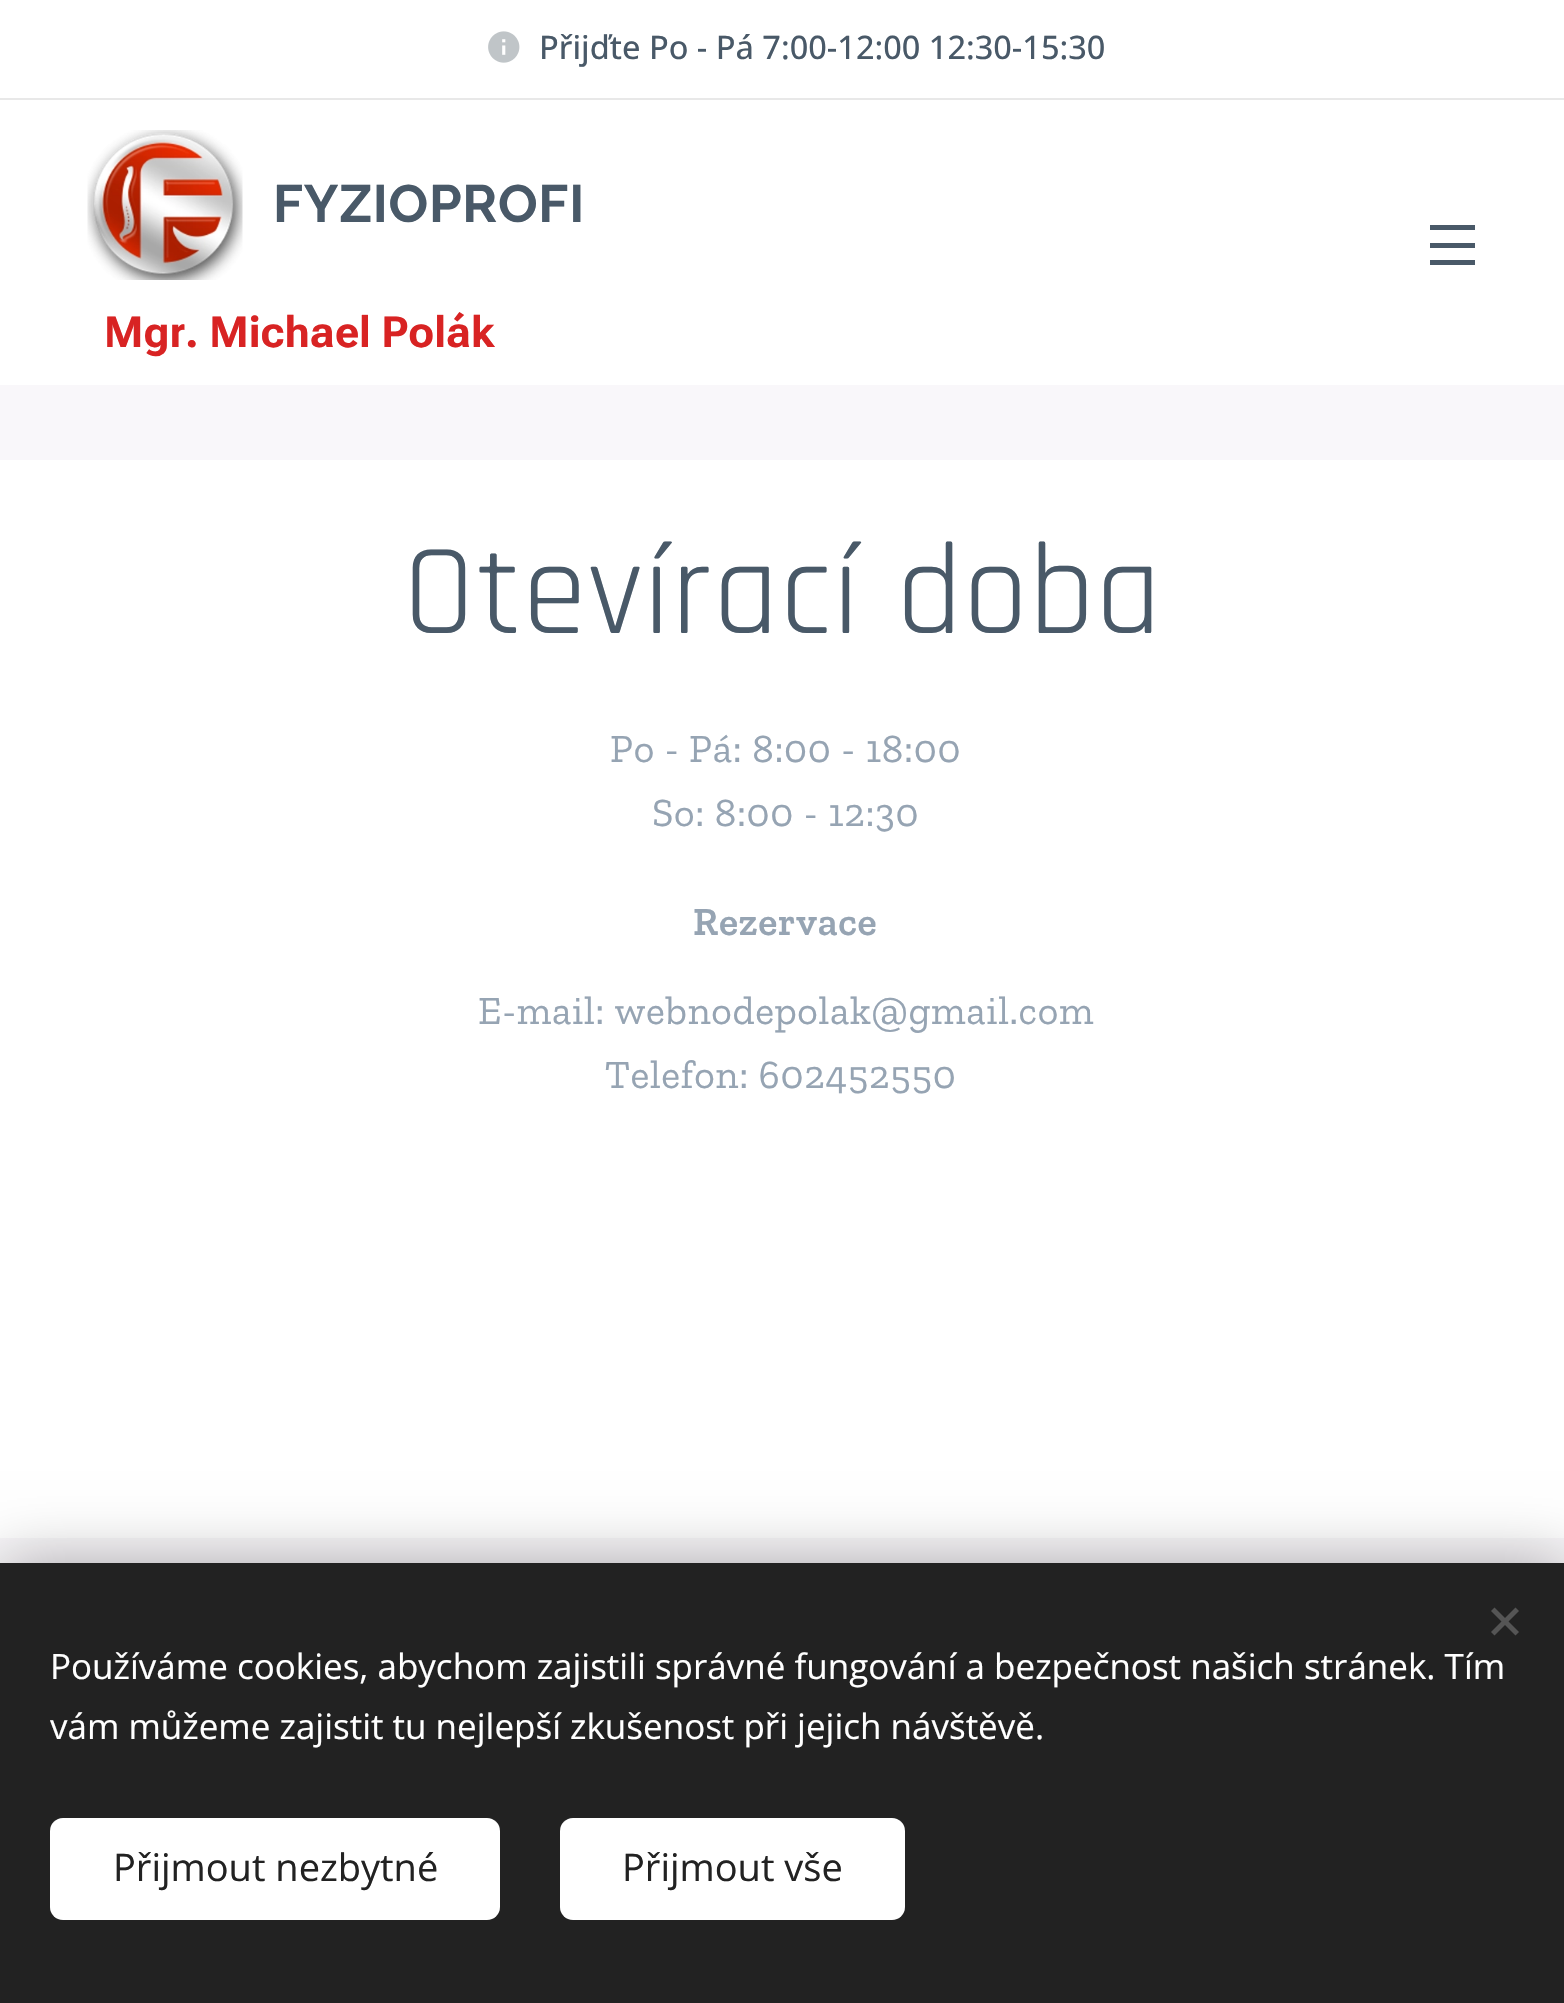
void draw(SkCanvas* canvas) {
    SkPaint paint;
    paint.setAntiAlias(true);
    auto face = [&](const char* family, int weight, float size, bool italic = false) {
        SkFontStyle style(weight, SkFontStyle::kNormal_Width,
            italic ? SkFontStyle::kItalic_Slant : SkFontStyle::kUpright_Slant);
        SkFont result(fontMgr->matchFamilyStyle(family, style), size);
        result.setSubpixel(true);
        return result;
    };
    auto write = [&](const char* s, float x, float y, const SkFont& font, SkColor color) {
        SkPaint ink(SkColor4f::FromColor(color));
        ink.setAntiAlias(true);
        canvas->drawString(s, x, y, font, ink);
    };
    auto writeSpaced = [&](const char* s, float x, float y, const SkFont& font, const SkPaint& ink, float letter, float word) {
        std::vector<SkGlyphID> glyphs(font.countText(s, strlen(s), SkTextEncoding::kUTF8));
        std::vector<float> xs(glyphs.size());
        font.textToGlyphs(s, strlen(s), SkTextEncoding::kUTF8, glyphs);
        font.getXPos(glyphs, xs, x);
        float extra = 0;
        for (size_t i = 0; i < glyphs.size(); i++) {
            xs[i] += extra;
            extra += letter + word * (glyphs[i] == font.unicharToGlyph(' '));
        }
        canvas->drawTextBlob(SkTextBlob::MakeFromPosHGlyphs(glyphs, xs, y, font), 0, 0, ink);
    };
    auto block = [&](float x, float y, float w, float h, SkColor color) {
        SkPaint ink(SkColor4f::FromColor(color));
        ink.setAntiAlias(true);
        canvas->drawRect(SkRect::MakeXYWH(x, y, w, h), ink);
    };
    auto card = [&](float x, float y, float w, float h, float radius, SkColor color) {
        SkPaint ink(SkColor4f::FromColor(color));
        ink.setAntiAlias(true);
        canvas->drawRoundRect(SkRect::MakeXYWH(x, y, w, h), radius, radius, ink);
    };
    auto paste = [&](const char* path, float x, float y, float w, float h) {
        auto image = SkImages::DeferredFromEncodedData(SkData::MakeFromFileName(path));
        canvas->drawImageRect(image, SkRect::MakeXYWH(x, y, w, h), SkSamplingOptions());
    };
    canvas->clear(SkColorSetRGB(249, 247, 250));
    block(0, 0, 1564, 98, SK_ColorWHITE);
    paste("pic1.png", 488, 31, 32, 32);
    auto kFont1 = face("Open Sans", 500, 32.5f);
    write("Přijďte Po - Pá 7:00-12:00 12:30-15:30", 539, 59, kFont1, SkColorSetRGB(73, 89, 104));
    block(0, 98, 1564, 2, SkColorSetRGB(232, 232, 232));
    block(0, 100, 1564, 285, SK_ColorWHITE);
    paste("pic2.png", 87, 130, 156, 150);
    auto kFont2 = face("Raleway", 700, 52.5f);
    paint.setColor(SkColorSetRGB(73, 89, 104));
    writeSpaced("FYZIOPROFI", 273, 222, kFont2, paint, 0.7f, 0);
    auto kFont3 = face("Roboto Flex", 700, 43);
    write("Mgr. Michael Polák", 104, 347, kFont3, SkColorSetRGB(216, 35, 35));
    block(1430, 243, 45, 5, SkColorSetRGB(73, 89, 104));
    block(1430, 225, 45, 5, SkColorSetRGB(73, 89, 104));
    block(1430, 260, 45, 5, SkColorSetRGB(73, 89, 104));
    block(0, 460, 1564, 1078, SK_ColorWHITE);
    auto kFont4 = face("Rajdhani", 400, 130);
    writeSpaced("Otevírací doba", 403, 633, kFont4, paint, 1.25f, 0);
    auto kFont5 = face("Zilla Slab", 400, 40);
    paint.setColor(SkColorSetRGB(150, 164, 179));
    writeSpaced("Po - Pá: 8:00 - 18:00", 610, 762, kFont5, paint, 0.7f, 0);
    writeSpaced("So: 8:00 - 12:30", 652, 826, kFont5, paint, 0.7f, 0);
    auto kFont6 = face("Zilla Slab", 600, 40);
    writeSpaced("Rezervace", 693, 935, kFont6, paint, 0.7f, 0);
    writeSpaced("E-mail: webnodepolak@gmail.com", 478, 1024, kFont5, paint, 0.7f, 0);
    writeSpaced("Telefon: 602452550", 605, 1088, kFont5, paint, 0.7f, 0);
    paint.setColor(SkColorSetARGB(84, 0, 0, 0));
    paint.setMaskFilter(SkMaskFilter::MakeBlur(kNormal_SkBlurStyle, 31));
    canvas->drawRect(SkRect::MakeXYWH(0, 1563, 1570, 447), paint);
    paint.setMaskFilter(nullptr);
    block(0, 1563, 1564, 440, SkColorSetRGB(34, 34, 34));
    paint.setColor(SkColorSetRGB(85, 85, 85));
    canvas->drawPath(SkPathBuilder().moveTo(1491, 1632).lineTo(1515.5f, 1607.5f).lineTo(1519, 1611).lineTo(1494.5f, 1635.5f).close().detach(), paint);
    canvas->drawPath(SkPathBuilder().moveTo(1494.5f, 1607.5f).lineTo(1519, 1632).lineTo(1515.5f, 1635.5f).lineTo(1491, 1611).close().detach(), paint);
    auto kFont7 = face("Open Sans", 400, 35);
    write("Používáme cookies, abychom zajistili správné fungování a bezpečnost našich stránek. Tím", 50, 1679, kFont7, SK_ColorWHITE);
    write("vám můžeme zajistit tu nejlepší zkušenost při jejich návštěvě.", 50, 1739, kFont7, SK_ColorWHITE);
    card(50, 1818, 450, 102, 13, SK_ColorWHITE);
    auto kFont8 = face("Open Sans", 400, 38);
    write("Přijmout nezbytné", 113, 1881, kFont8, SkColorSetRGB(34, 34, 34));
    card(560, 1818, 345, 102, 13, SK_ColorWHITE);
    write("Přijmout vše", 622, 1881, kFont8, SkColorSetRGB(34, 34, 34));
}
